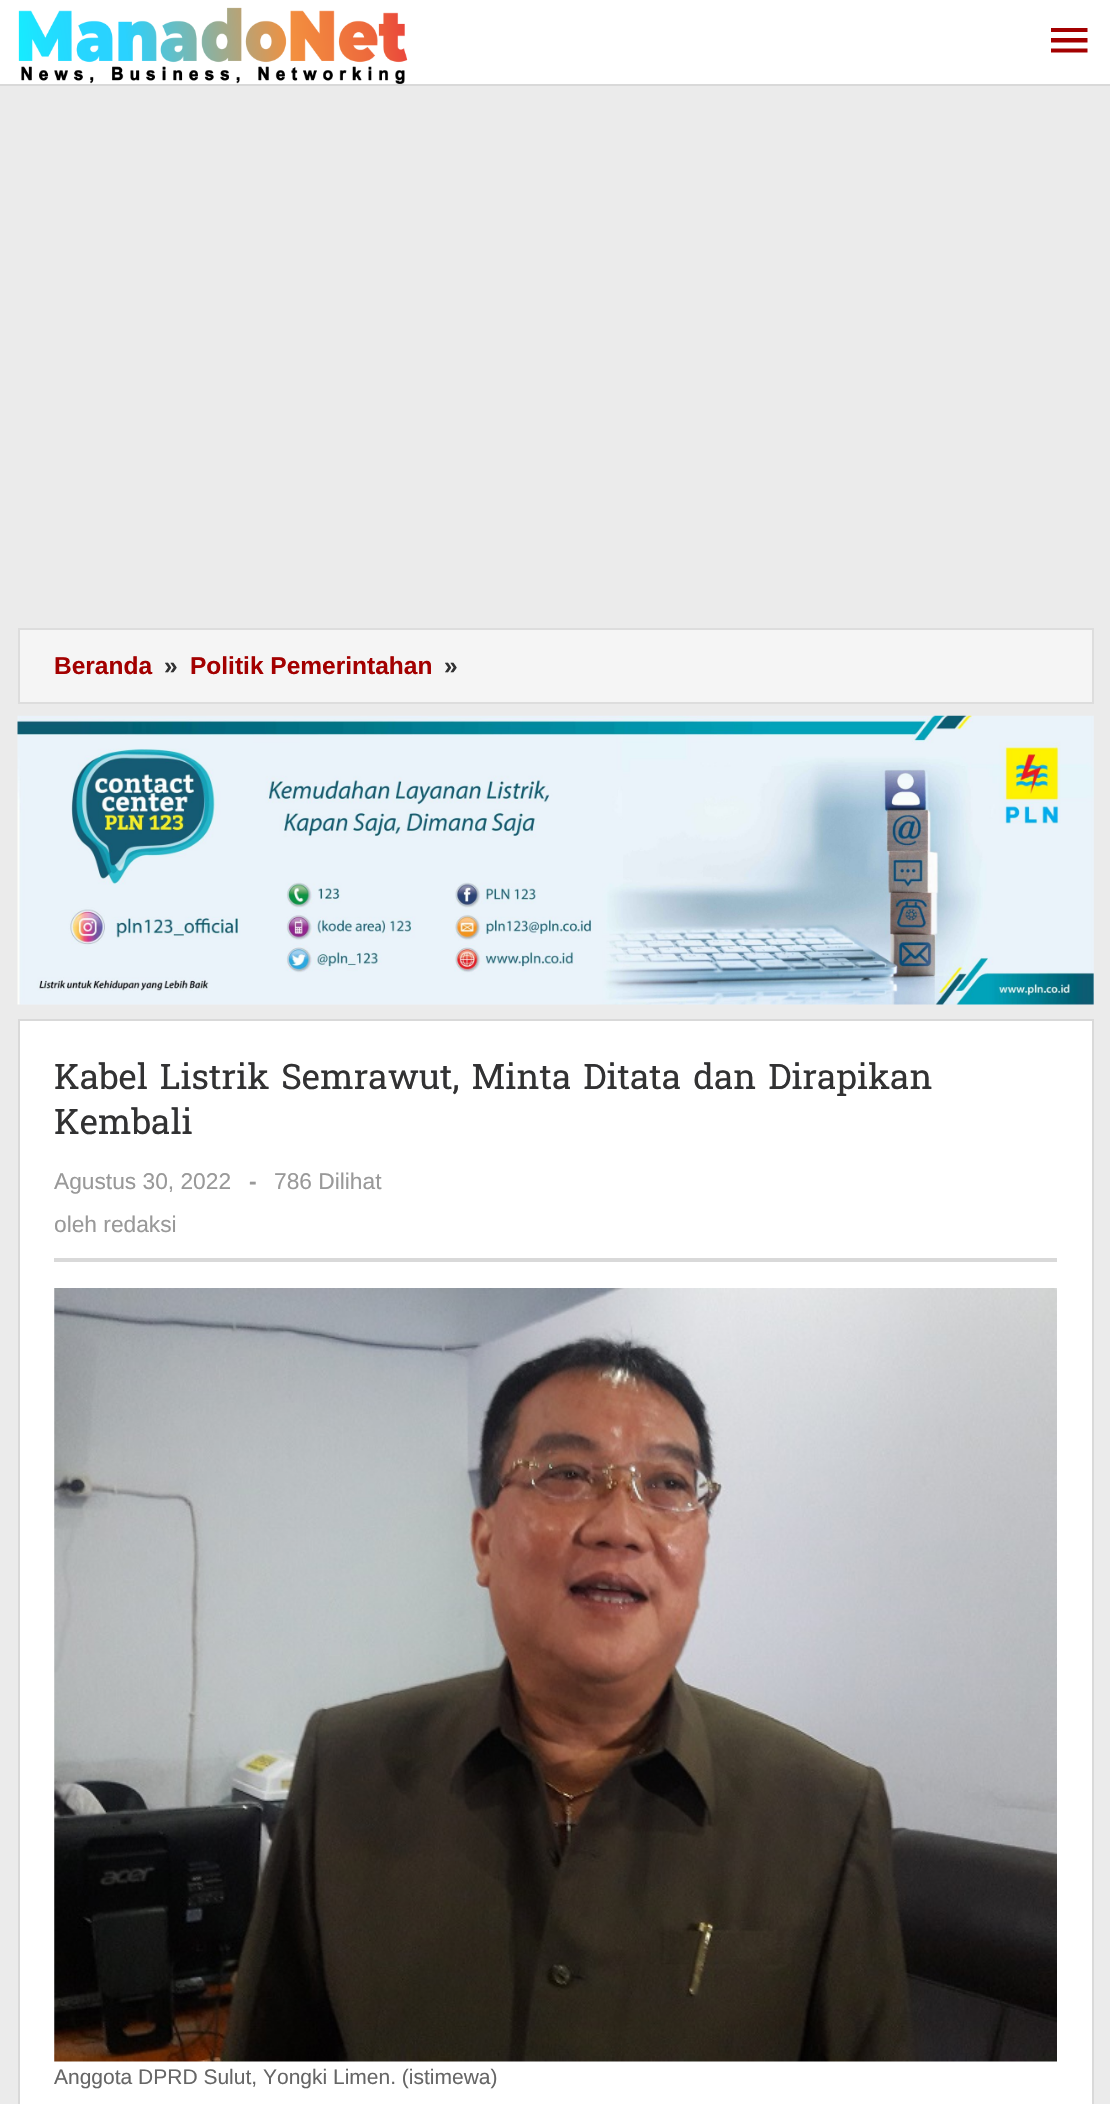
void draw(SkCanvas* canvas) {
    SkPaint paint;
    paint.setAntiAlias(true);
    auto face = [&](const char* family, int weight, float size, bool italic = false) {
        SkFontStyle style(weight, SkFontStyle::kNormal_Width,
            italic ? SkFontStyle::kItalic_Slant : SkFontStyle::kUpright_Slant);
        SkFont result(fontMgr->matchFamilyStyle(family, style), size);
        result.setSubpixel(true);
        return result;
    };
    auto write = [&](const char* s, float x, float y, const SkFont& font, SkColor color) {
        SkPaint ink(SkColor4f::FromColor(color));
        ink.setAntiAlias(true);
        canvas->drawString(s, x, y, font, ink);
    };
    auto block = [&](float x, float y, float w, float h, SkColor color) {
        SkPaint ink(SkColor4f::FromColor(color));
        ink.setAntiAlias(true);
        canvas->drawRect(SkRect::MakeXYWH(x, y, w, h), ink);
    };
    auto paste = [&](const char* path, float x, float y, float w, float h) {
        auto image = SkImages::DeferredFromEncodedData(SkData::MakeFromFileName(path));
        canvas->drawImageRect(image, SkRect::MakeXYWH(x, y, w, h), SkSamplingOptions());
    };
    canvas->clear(SkColorSetRGB(235, 235, 235));
    block(0, 0, 1110, 84, SK_ColorWHITE);
    block(0, 84, 1110, 2, SkColorSetRGB(217, 217, 217));
    paste("pic1.png", 18, 7, 390, 77);
    paint.setColor(SkColorSetRGB(163, 0, 0));
    canvas->drawPath(SkPathBuilder().moveTo(1051, 52.5f).lineTo(1087.5f, 52.5f).lineTo(1087.5f, 48.5f).lineTo(1051, 48.5f).close().moveTo(1051, 42.5f).lineTo(1087.5f, 42.5f).lineTo(1087.5f, 38).lineTo(1051, 38).close().moveTo(1051, 28).lineTo(1051, 32).lineTo(1087.5f, 32).lineTo(1087.5f, 28).close().detach(), paint);
    paint.setColor(SkColorSetRGB(245, 245, 245));
    canvas->drawRect(SkRect::MakeXYWH(19, 629, 1074, 74), paint);
    paint.setStyle(SkPaint::kStroke_Style);
    paint.setStrokeWidth(2);
    paint.setColor(SkColorSetRGB(221, 221, 221));
    canvas->drawRect(SkRect::MakeXYWH(19, 629, 1074, 74), paint);
    auto kFont1 = face("Arimo", 700, 24.5f);
    write("Beranda", 54, 674, kFont1, SkColorSetRGB(163, 0, 0));
    write("»", 164, 674, kFont1, SkColorSetRGB(50, 50, 51));
    write("Politik Pemerintahan", 190, 674, kFont1, SkColorSetRGB(163, 0, 0));
    write("»", 444, 674, kFont1, SkColorSetRGB(50, 50, 51));
    paste("pic2.png", 17, 715, 1077, 290);
    paint.setStyle(SkPaint::kFill_Style);
    paint.setColor(SK_ColorWHITE);
    canvas->drawRect(SkRect::MakeXYWH(19, 1020, 1074, 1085), paint);
    paint.setStyle(SkPaint::kStroke_Style);
    paint.setColor(SkColorSetRGB(217, 217, 217));
    canvas->drawRect(SkRect::MakeXYWH(19, 1020, 1074, 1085), paint);
    block(54, 1258, 1003, 4, SkColorSetRGB(217, 217, 217));
    auto kFont2 = face("Battambang", 400, 35);
    write("Kabel Listrik Semrawut, Minta Ditata dan Dirapikan", 54, 1089, kFont2, SkColorSetRGB(50, 50, 51));
    write("Kembali", 54, 1134, kFont2, SkColorSetRGB(50, 50, 51));
    auto kFont3 = face("Arimo", 400, 22.75f);
    write("Agustus 30, 2022", 54, 1189, kFont3, SkColorSetRGB(153, 153, 153));
    auto kFont4 = face("Arimo", 700, 22.75f);
    write("-", 249, 1189, kFont4, SkColorSetRGB(153, 153, 153));
    write("786 Dilihat", 274, 1189, kFont3, SkColorSetRGB(153, 153, 153));
    write("oleh redaksi", 54, 1232, kFont3, SkColorSetRGB(153, 153, 153));
    paste("pic3.png", 54, 1288, 1003, 774);
    auto kFont5 = face("Arimo", 400, 21);
    write("Anggota DPRD Sulut, Yongki Limen. (istimewa)", 54, 2084, kFont5, SkColorSetRGB(102, 102, 102));
}
